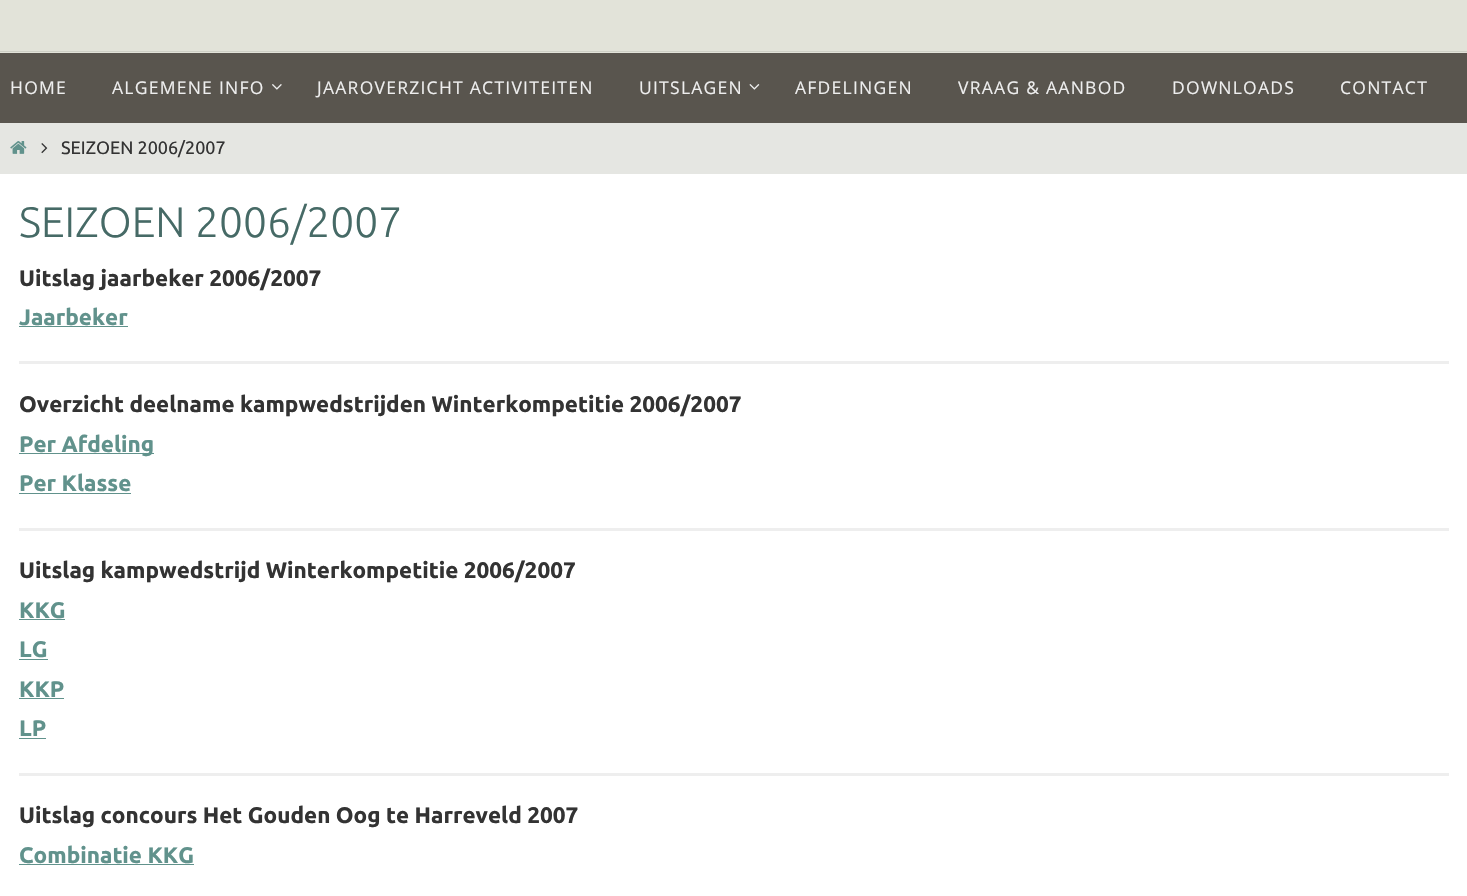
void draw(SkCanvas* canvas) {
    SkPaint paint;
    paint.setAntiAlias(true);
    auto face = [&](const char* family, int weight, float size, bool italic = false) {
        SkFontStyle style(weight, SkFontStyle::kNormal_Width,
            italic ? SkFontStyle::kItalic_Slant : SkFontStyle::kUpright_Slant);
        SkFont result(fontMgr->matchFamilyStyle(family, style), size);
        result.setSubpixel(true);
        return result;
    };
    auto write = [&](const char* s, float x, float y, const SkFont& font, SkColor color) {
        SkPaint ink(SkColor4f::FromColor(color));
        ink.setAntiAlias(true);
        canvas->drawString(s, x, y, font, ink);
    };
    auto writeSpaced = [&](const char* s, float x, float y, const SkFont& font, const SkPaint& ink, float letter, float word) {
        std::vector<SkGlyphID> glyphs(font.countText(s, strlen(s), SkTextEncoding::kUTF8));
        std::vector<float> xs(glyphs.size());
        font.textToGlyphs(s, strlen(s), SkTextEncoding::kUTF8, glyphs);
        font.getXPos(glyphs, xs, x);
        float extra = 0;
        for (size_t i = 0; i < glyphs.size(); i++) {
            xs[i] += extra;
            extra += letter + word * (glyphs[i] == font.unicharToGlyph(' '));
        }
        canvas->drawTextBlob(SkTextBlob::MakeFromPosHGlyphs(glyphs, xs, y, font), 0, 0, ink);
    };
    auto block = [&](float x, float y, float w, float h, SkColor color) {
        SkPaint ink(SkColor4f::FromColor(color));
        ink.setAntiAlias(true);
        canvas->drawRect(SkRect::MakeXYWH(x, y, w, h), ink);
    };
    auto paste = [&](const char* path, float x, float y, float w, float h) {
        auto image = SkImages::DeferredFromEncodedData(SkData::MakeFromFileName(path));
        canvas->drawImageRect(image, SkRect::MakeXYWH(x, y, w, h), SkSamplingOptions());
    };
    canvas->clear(SK_ColorWHITE);
    block(0, 0, 1467, 53, SkColorSetRGB(226, 227, 217));
    block(0, 51, 1467, 1, SkColorSetRGB(206, 207, 197));
    block(0, 53, 1467, 70, SkColorSetRGB(89, 85, 78));
    auto kFont1 = face("Open Sans", 400, 17.5f);
    paint.setColor(SkColorSetRGB(238, 238, 238));
    writeSpaced("HOME", 10, 94, kFont1, paint, 1.25f, 0);
    writeSpaced("ALGEMENE INFO", 112, 94, kFont1, paint, 1.25f, 0);
    paste("pic1.png", 272, 84, 10, 6);
    writeSpaced("JAAROVERZICHT ACTIVITEITEN", 317, 94, kFont1, paint, 1.25f, 0);
    writeSpaced("UITSLAGEN", 639, 94, kFont1, paint, 1.25f, 0);
    paste("pic2.png", 749, 84, 11, 6);
    writeSpaced("AFDELINGEN", 795, 94, kFont1, paint, 1.25f, 0);
    writeSpaced("VRAAG & AANBOD", 958, 94, kFont1, paint, 1.25f, 0);
    writeSpaced("DOWNLOADS", 1172, 94, kFont1, paint, 1.25f, 0);
    writeSpaced("CONTACT", 1340, 94, kFont1, paint, 1.25f, 0);
    block(0, 123, 1467, 51, SkColorSetRGB(229, 230, 226));
    paste("pic3.png", 10, 141, 17, 13);
    paste("pic4.png", 41, 143, 7, 11);
    auto kFont2 = face("Ubuntu", 400, 18);
    write("SEIZOEN 2006/2007", 61, 154, kFont2, SkColorSetRGB(51, 51, 51));
    auto kFont3 = face("Ubuntu", 300, 42.5f);
    write("SEIZOEN 2006/2007", 19, 237, kFont3, SkColorSetRGB(70, 106, 102));
    auto kFont4 = face("Ubuntu", 700, 22.5f);
    write("Uitslag jaarbeker 2006/2007", 19, 286, kFont4, SkColorSetRGB(51, 51, 51));
    write("Jaarbeker", 19, 325, kFont4, SkColorSetRGB(97, 146, 140));
    block(19, 326, 109, 1, SkColorSetRGB(97, 146, 140));
    block(19, 361, 1430, 3, SkColorSetRGB(238, 238, 238));
    write("Overzicht deelname kampwedstrijden Winterkompetitie 2006/2007", 19, 412, kFont4, SkColorSetRGB(51, 51, 51));
    block(19, 453, 135, 1, SkColorSetRGB(97, 146, 140));
    write("Per Afdeling", 19, 452, kFont4, SkColorSetRGB(97, 146, 140));
    write("Per Klasse", 19, 491, kFont4, SkColorSetRGB(97, 146, 140));
    block(19, 493, 112, 1, SkColorSetRGB(97, 146, 140));
    block(19, 528, 1430, 3, SkColorSetRGB(238, 238, 238));
    write("Uitslag kampwedstrijd Winterkompetitie 2006/2007", 19, 578, kFont4, SkColorSetRGB(51, 51, 51));
    write("KKG", 19, 618, kFont4, SkColorSetRGB(97, 146, 140));
    block(19, 619, 46, 1, SkColorSetRGB(97, 146, 140));
    write("LG", 19, 657, kFont4, SkColorSetRGB(97, 146, 140));
    block(19, 659, 29, 1, SkColorSetRGB(97, 146, 140));
    write("KKP", 19, 697, kFont4, SkColorSetRGB(97, 146, 140));
    block(19, 698, 45, 1, SkColorSetRGB(97, 146, 140));
    write("LP", 19, 736, kFont4, SkColorSetRGB(97, 146, 140));
    block(19, 738, 27, 1, SkColorSetRGB(97, 146, 140));
    block(19, 773, 1430, 3, SkColorSetRGB(238, 238, 238));
    write("Uitslag concours Het Gouden Oog te Harreveld 2007", 19, 823, kFont4, SkColorSetRGB(51, 51, 51));
    write("Combinatie KKG", 19, 863, kFont4, SkColorSetRGB(97, 146, 140));
    block(19, 864, 175, 1, SkColorSetRGB(97, 146, 140));
}
